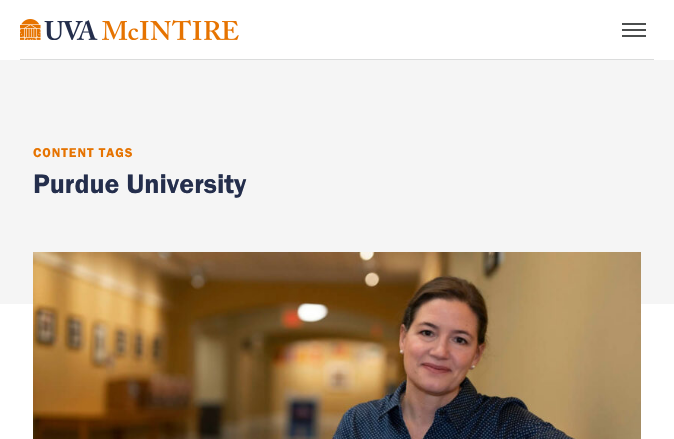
void draw(SkCanvas* canvas) {
    SkPaint paint;
    paint.setAntiAlias(true);
    auto face = [&](const char* family, int weight, float size, bool italic = false) {
        SkFontStyle style(weight, SkFontStyle::kNormal_Width,
            italic ? SkFontStyle::kItalic_Slant : SkFontStyle::kUpright_Slant);
        SkFont result(fontMgr->matchFamilyStyle(family, style), size);
        result.setSubpixel(true);
        return result;
    };
    auto write = [&](const char* s, float x, float y, const SkFont& font, SkColor color) {
        SkPaint ink(SkColor4f::FromColor(color));
        ink.setAntiAlias(true);
        canvas->drawString(s, x, y, font, ink);
    };
    auto writeSpaced = [&](const char* s, float x, float y, const SkFont& font, const SkPaint& ink, float letter, float word) {
        std::vector<SkGlyphID> glyphs(font.countText(s, strlen(s), SkTextEncoding::kUTF8));
        std::vector<float> xs(glyphs.size());
        font.textToGlyphs(s, strlen(s), SkTextEncoding::kUTF8, glyphs);
        font.getXPos(glyphs, xs, x);
        float extra = 0;
        for (size_t i = 0; i < glyphs.size(); i++) {
            xs[i] += extra;
            extra += letter + word * (glyphs[i] == font.unicharToGlyph(' '));
        }
        canvas->drawTextBlob(SkTextBlob::MakeFromPosHGlyphs(glyphs, xs, y, font), 0, 0, ink);
    };
    auto block = [&](float x, float y, float w, float h, SkColor color) {
        SkPaint ink(SkColor4f::FromColor(color));
        ink.setAntiAlias(true);
        canvas->drawRect(SkRect::MakeXYWH(x, y, w, h), ink);
    };
    auto paste = [&](const char* path, float x, float y, float w, float h) {
        auto image = SkImages::DeferredFromEncodedData(SkData::MakeFromFileName(path));
        canvas->drawImageRect(image, SkRect::MakeXYWH(x, y, w, h), SkSamplingOptions());
    };
    canvas->clear(SK_ColorWHITE);
    block(20, 59, 634, 1, SkColorSetRGB(219, 220, 220));
    paste("pic1.png", 20, 19, 219, 21);
    block(622, 29, 24, 2, SkColorSetRGB(75, 78, 78));
    block(622, 23, 24, 2, SkColorSetRGB(75, 78, 78));
    block(622, 35, 24, 2, SkColorSetRGB(75, 78, 78));
    block(0, 60, 674, 244, SkColorSetRGB(245, 245, 245));
    auto kFont1 = face("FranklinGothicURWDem", 400, 13.25f);
    paint.setColor(SkColorSetRGB(230, 115, 0));
    writeSpaced("CONTENT TAGS", 33, 157, kFont1, paint, 1, 0);
    auto kFont2 = face("FranklinGothicURWDem", 400, 27.75f);
    write("Purdue University", 33, 193, kFont2, SkColorSetRGB(36, 46, 76));
    paste("pic2.png", 33, 252, 608, 187);
}
